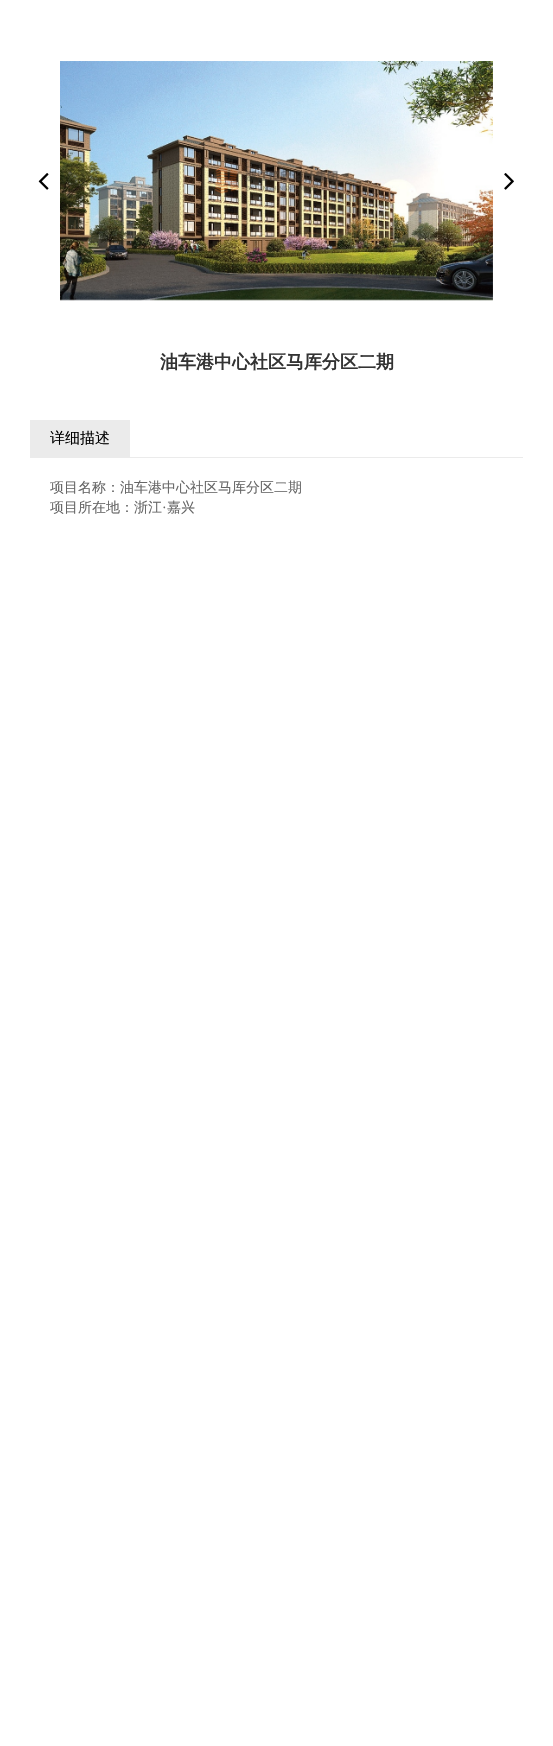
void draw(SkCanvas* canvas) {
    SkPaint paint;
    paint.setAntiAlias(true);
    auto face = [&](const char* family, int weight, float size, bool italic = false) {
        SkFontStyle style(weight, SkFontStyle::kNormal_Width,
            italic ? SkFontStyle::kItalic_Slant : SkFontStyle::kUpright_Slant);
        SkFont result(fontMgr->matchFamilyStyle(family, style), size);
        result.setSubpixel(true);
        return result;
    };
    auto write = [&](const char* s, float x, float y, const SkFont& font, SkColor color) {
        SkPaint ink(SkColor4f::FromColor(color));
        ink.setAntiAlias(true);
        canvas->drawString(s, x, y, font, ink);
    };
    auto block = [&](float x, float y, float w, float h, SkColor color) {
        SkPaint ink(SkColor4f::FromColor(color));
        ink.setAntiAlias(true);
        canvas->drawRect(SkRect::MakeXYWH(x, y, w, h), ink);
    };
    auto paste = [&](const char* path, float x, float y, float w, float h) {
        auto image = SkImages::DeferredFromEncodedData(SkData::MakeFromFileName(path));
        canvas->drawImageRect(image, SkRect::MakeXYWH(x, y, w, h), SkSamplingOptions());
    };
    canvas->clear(SK_ColorWHITE);
    paste("pic1.png", 38, 173, 11, 17);
    paste("pic2.png", 60, 61, 433, 240);
    paste("pic3.png", 504, 173, 10, 17);
    auto kFont1 = face("WenQuanYi Zen Hei", 700, 18);
    write("油车港中心社区马厍分区二期", 160, 368, kFont1, SkColorSetRGB(51, 51, 51));
    block(30, 457, 493, 1, SkColorSetRGB(235, 235, 235));
    block(30, 420, 100, 37, SkColorSetRGB(235, 235, 235));
    auto kFont2 = face("WenQuanYi Zen Hei", 500, 15);
    write("详细描述", 50, 443, kFont2, SK_ColorBLACK);
    auto kFont3 = face("WenQuanYi Zen Hei", 500, 14);
    write("项目名称：油车港中心社区马厍分区二期", 50, 492, kFont3, SkColorSetRGB(102, 102, 102));
    write("项目所在地：浙江", 50, 512, kFont3, SkColorSetRGB(102, 102, 102));
    auto kFont4 = face("Liberation Serif", 400, 14);
    write("·", 162, 512, kFont4, SkColorSetRGB(102, 102, 102));
    write("嘉兴", 167, 512, kFont3, SkColorSetRGB(102, 102, 102));
}
